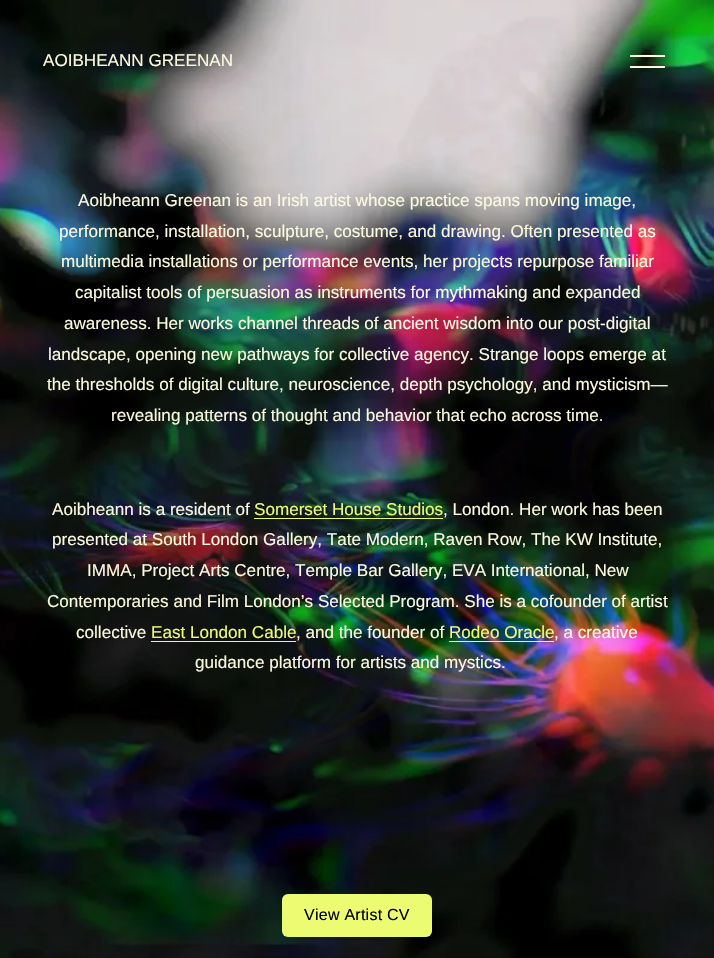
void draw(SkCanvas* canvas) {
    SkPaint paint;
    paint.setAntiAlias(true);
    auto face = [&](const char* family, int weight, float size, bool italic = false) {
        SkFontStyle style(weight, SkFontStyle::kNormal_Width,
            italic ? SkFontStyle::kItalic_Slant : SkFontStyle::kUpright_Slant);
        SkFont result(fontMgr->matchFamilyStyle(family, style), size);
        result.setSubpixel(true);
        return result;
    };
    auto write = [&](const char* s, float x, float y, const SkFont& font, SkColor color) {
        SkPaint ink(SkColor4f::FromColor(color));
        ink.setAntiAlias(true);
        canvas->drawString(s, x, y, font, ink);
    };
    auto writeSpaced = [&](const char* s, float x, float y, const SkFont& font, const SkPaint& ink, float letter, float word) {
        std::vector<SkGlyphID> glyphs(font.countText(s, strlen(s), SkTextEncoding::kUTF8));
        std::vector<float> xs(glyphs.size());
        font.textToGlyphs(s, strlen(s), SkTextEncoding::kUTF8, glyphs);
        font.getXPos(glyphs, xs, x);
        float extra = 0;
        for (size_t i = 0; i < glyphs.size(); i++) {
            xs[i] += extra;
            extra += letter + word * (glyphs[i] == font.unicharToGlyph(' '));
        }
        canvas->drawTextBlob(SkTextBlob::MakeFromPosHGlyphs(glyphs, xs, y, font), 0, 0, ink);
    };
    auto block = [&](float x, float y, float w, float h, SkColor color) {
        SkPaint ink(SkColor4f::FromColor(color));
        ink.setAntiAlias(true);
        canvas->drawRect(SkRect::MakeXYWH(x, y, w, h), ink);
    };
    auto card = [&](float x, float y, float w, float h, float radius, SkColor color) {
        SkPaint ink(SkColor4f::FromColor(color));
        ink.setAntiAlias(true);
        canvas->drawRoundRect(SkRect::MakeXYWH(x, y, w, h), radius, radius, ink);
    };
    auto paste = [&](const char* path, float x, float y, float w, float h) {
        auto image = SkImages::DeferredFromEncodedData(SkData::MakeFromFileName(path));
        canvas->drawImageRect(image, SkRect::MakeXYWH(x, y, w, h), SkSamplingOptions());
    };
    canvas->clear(SK_ColorWHITE);
    paste("pic1.png", 0, 0, 714, 958);
    auto kFont1 = face("Liberation Sans", 400, 17.1f);
    write("AOIBHEANN GREENAN", 43, 66, kFont1, SkColorSetRGB(252, 250, 223));
    block(630, 55, 35, 2, SkColorSetRGB(252, 250, 223));
    block(630, 66, 35, 2, SkColorSetRGB(252, 250, 223));
    write("Aoibheann Greenan is an Irish artist whose practice spans moving image,", 78, 206, kFont1, SkColorSetRGB(252, 250, 223));
    write("performance, installation, sculpture, costume, and drawing. Often presented as", 59, 237, kFont1, SkColorSetRGB(252, 250, 223));
    write("multimedia installations or performance events, her projects repurpose familiar", 61, 267, kFont1, SkColorSetRGB(252, 250, 223));
    write("capitalist tools of persuasion as instruments for mythmaking and expanded", 75, 298, kFont1, SkColorSetRGB(252, 250, 223));
    write("awareness. Her works channel threads of ancient wisdom into our post-digital", 64, 329, kFont1, SkColorSetRGB(252, 250, 223));
    write("landscape, opening new pathways for collective agency. Strange loops emerge at", 48, 360, kFont1, SkColorSetRGB(252, 250, 223));
    write("the thresholds of digital culture, neuroscience, depth psychology, and mysticism—", 47, 390, kFont1, SkColorSetRGB(252, 250, 223));
    write("revealing patterns of thought and behavior that echo across time.", 111, 421, kFont1, SkColorSetRGB(252, 250, 223));
    write("Aoibheann is a resident of", 52, 515, kFont1, SkColorSetRGB(252, 250, 223));
    write("Somerset House Studios", 254, 515, kFont1, SkColorSetRGB(235, 252, 114));
    block(254, 518, 189, 1, SkColorSetRGB(235, 252, 114));
    write(", London. Her work has been", 443, 515, kFont1, SkColorSetRGB(252, 250, 223));
    write("presented at South London Gallery, Tate Modern, Raven Row, The KW Institute,", 52, 545, kFont1, SkColorSetRGB(252, 250, 223));
    write("IMMA, Project Arts Centre, Temple Bar Gallery, EVA International, New", 87, 576, kFont1, SkColorSetRGB(252, 250, 223));
    write("Contemporaries and Film London’s Selected Program. She is a cofounder of artist", 47, 607, kFont1, SkColorSetRGB(252, 250, 223));
    write("collective", 76, 638, kFont1, SkColorSetRGB(252, 250, 223));
    write("East London Cable", 151, 638, kFont1, SkColorSetRGB(235, 252, 114));
    block(151, 641, 145, 1, SkColorSetRGB(235, 252, 114));
    write(", and the founder of", 296, 638, kFont1, SkColorSetRGB(252, 250, 223));
    write("Rodeo Oracle", 449, 638, kFont1, SkColorSetRGB(235, 252, 114));
    block(449, 641, 105, 1, SkColorSetRGB(235, 252, 114));
    write(", a creative", 554, 638, kFont1, SkColorSetRGB(252, 250, 223));
    write("guidance platform for artists and mystics.", 195, 668, kFont1, SkColorSetRGB(252, 250, 223));
    card(282, 894, 150, 43, 6, SkColorSetRGB(235, 252, 114));
    auto kFont2 = face("Liberation Sans", 400, 16);
    paint.setColor(SK_ColorBLACK);
    writeSpaced("View Artist CV", 304, 920, kFont2, paint, 0.25f, 0);
}
